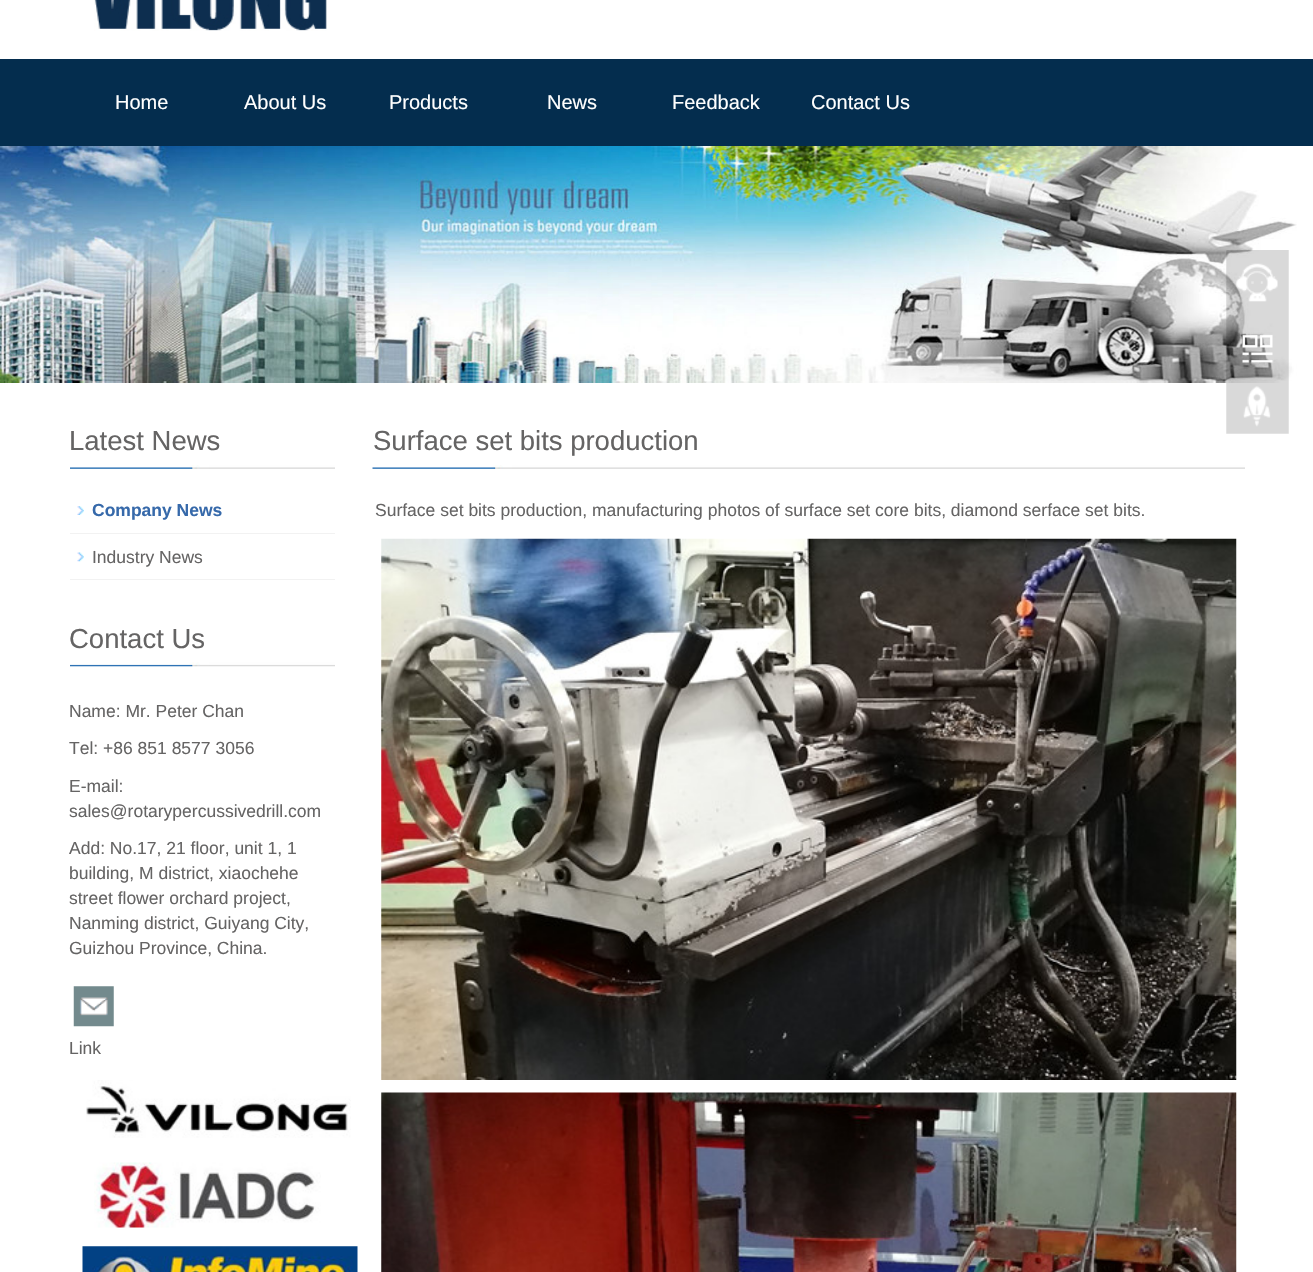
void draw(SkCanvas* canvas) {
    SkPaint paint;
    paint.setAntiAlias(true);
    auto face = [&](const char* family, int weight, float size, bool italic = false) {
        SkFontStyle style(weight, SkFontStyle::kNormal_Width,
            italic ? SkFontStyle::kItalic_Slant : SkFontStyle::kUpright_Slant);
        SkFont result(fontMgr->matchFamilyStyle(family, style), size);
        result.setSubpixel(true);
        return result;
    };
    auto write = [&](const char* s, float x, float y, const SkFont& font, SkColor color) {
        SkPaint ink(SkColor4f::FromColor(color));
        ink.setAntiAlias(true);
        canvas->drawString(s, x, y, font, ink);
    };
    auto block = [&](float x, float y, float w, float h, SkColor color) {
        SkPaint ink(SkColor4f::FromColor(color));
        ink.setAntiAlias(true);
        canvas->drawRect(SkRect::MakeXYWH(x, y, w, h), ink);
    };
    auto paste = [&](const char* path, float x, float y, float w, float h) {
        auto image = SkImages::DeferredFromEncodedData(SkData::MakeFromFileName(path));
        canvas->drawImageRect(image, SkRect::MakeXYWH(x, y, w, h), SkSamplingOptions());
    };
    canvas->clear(SK_ColorWHITE);
    paste("pic1.png", 94, 0, 233, 31);
    block(0, 59, 1313, 87, SkColorSetRGB(4, 45, 78));
    auto kFont1 = face("Liberation Sans", 400, 20);
    write("Home", 115, 109, kFont1, SK_ColorWHITE);
    write("About Us", 244, 109, kFont1, SK_ColorWHITE);
    write("Products", 389, 109, kFont1, SK_ColorWHITE);
    write("News", 547, 109, kFont1, SK_ColorWHITE);
    write("Feedback", 672, 109, kFont1, SK_ColorWHITE);
    write("Contact Us", 811, 109, kFont1, SK_ColorWHITE);
    paste("pic2.png", 0, 146, 1297, 237);
    paint.setColor(SK_ColorWHITE);
    canvas->drawRoundRect(SkRect::MakeXYWH(634.5f, 346.5f, 11, 12), 5.5f, 5.5f, paint);
    paint.setStyle(SkPaint::kStroke_Style);
    paint.setStrokeWidth(1);
    canvas->drawRoundRect(SkRect::MakeXYWH(634.5f, 346.5f, 11, 12), 5.5f, 5.5f, paint);
    canvas->drawRoundRect(SkRect::MakeXYWH(669.5f, 346.5f, 11, 12), 5.5f, 5.5f, paint);
    paste("pic3.png", 1226, 250, 63, 184);
    paste("pic4.png", 70, 465, 265, 4);
    auto kFont2 = face("Liberation Sans", 400, 27.5f);
    write("Latest News", 69, 450, kFont2, SkColorSetRGB(101, 100, 100));
    paste("pic5.png", 77, 506, 7, 9);
    block(70, 533, 265, 1, SkColorSetRGB(242, 242, 242));
    auto kFont3 = face("Liberation Sans", 700, 17.5f);
    write("Company News", 92, 516, kFont3, SkColorSetRGB(54, 105, 170));
    paste("pic6.png", 77, 552, 7, 10);
    block(70, 579, 265, 1, SkColorSetRGB(242, 242, 242));
    auto kFont4 = face("Liberation Sans", 400, 17.5f);
    write("Industry News", 92, 563, kFont4, SkColorSetRGB(101, 100, 100));
    paste("pic7.png", 70, 662, 265, 5);
    write("Contact Us", 69, 648, kFont2, SkColorSetRGB(101, 100, 100));
    write("Name: Mr. Peter Chan", 69, 717, kFont4, SkColorSetRGB(101, 100, 100));
    write("Tel: +86 851 8577 3056", 69, 754, kFont4, SkColorSetRGB(101, 100, 100));
    write("E-mail:", 69, 792, kFont4, SkColorSetRGB(101, 100, 100));
    write("sales@rotarypercussivedrill.com", 69, 817, kFont4, SkColorSetRGB(101, 100, 100));
    write("Add: No.17, 21 floor, unit 1, 1", 69, 854, kFont4, SkColorSetRGB(101, 100, 100));
    write("building, M district, xiaochehe", 69, 879, kFont4, SkColorSetRGB(101, 100, 100));
    write("street flower orchard project,", 69, 904, kFont4, SkColorSetRGB(101, 100, 100));
    write("Nanming district, Guiyang City,", 69, 929, kFont4, SkColorSetRGB(101, 100, 100));
    write("Guizhou Province, China.", 69, 954, kFont4, SkColorSetRGB(101, 100, 100));
    paste("pic8.png", 73, 986, 41, 41);
    write("Link", 69, 1054, kFont4, SkColorSetRGB(101, 100, 100));
    paste("pic9.png", 86, 1080, 265, 58);
    paste("pic10.png", 94, 1162, 227, 66);
    paste("pic11.png", 82, 1246, 276, 26);
    paste("pic12.png", 372, 465, 873, 4);
    write("Surface set bits production", 373, 450, kFont2, SkColorSetRGB(101, 100, 100));
    write("Surface set bits production, manufacturing photos of surface set core bits, diamond serface set bits.", 375, 516, kFont4, SkColorSetRGB(101, 100, 100));
    paste("pic13.png", 381, 538, 856, 542);
    paste("pic14.png", 381, 1092, 856, 180);
}
